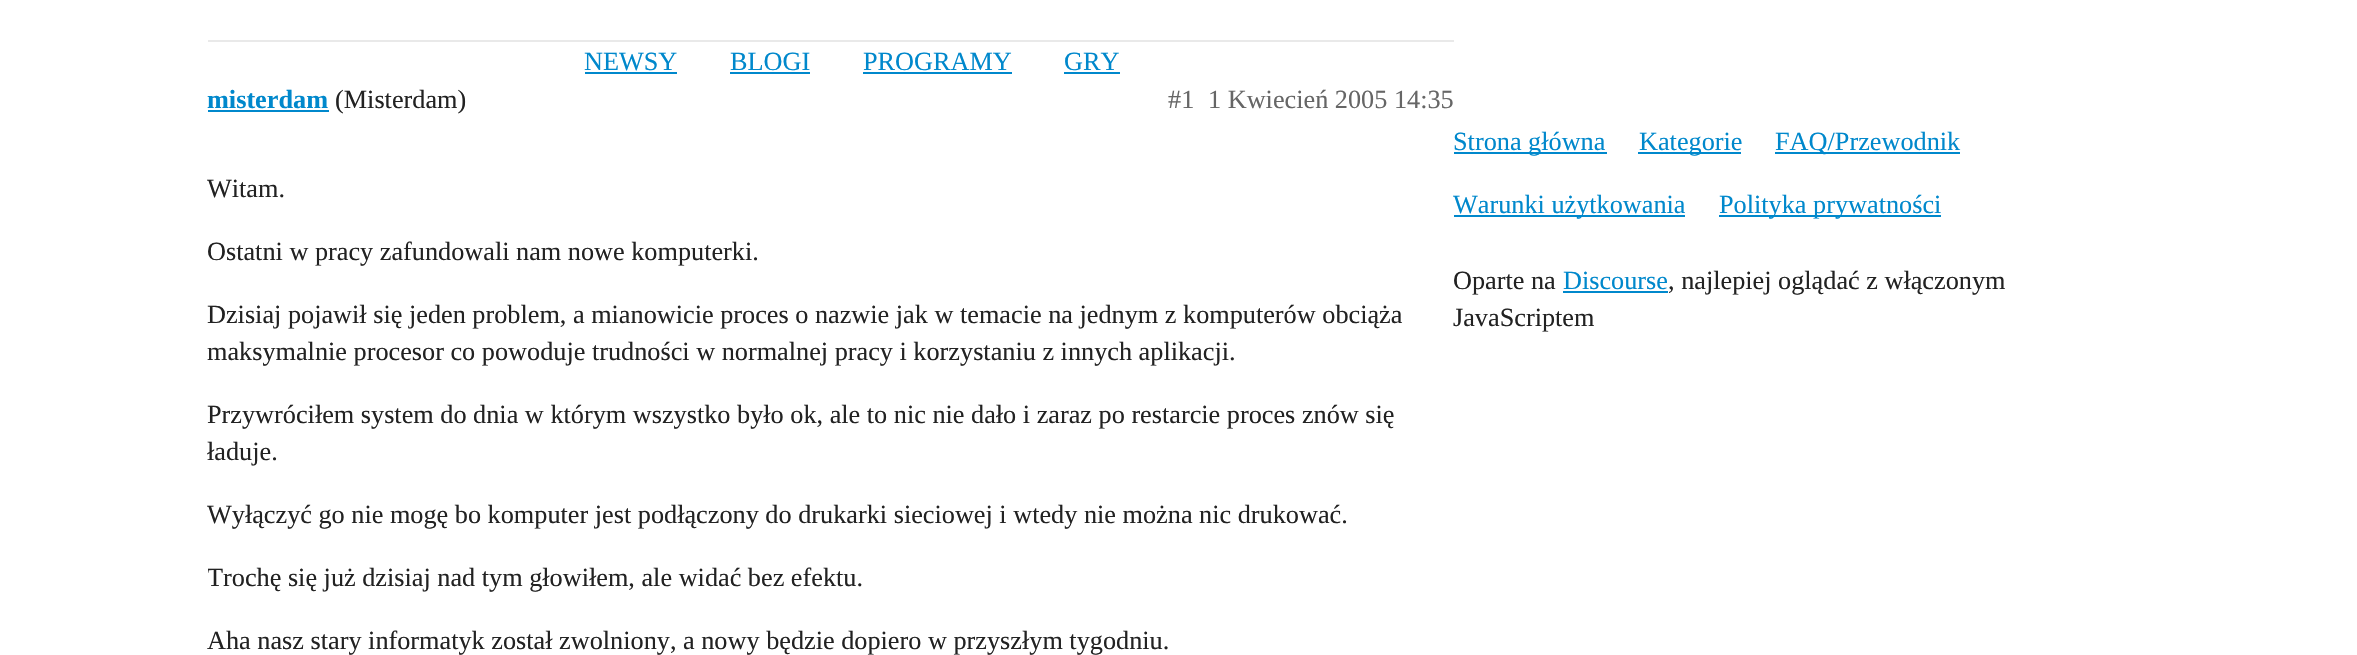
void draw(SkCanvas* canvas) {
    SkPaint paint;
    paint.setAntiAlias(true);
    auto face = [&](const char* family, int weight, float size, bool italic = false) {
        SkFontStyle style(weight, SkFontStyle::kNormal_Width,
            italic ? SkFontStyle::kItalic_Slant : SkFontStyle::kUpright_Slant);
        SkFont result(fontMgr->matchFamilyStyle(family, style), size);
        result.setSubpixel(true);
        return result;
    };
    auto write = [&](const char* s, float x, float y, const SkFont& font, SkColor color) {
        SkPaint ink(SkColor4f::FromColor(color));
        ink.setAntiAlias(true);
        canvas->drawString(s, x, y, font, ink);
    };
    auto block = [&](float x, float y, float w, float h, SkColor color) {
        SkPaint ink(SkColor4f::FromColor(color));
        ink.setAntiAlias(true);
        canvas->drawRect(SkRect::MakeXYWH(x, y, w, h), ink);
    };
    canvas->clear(SK_ColorWHITE);
    auto kFont1 = face("Liberation Serif", 400, 26.25f);
    write("NEWSY", 584, 70, kFont1, SkColorSetRGB(0, 136, 204));
    block(585, 72, 92, 2, SkColorSetRGB(0, 136, 204));
    write("BLOGI", 730, 70, kFont1, SkColorSetRGB(0, 136, 204));
    block(730, 72, 80, 2, SkColorSetRGB(0, 136, 204));
    write("PROGRAMY", 863, 70, kFont1, SkColorSetRGB(0, 136, 204));
    block(863, 72, 149, 2, SkColorSetRGB(0, 136, 204));
    write("GRY", 1064, 70, kFont1, SkColorSetRGB(0, 136, 204));
    block(1064, 72, 56, 2, SkColorSetRGB(0, 136, 204));
    block(208, 40, 1246, 2, SkColorSetRGB(233, 233, 233));
    auto kFont2 = face("Liberation Serif", 700, 26.25f);
    write("misterdam", 207, 108, kFont2, SkColorSetRGB(0, 136, 204));
    block(208, 110, 121, 2, SkColorSetRGB(0, 136, 204));
    write("(Misterdam)", 335, 108, kFont1, SkColorSetRGB(34, 34, 34));
    write("#1", 1168, 108, kFont1, SkColorSetRGB(102, 102, 102));
    write("1 Kwiecień 2005 14:35", 1208, 108, kFont1, SkColorSetRGB(102, 102, 102));
    write("Witam.", 207, 197, kFont1, SkColorSetRGB(34, 34, 34));
    write("Ostatni w pracy zafundowali nam nowe komputerki.", 207, 260, kFont1, SkColorSetRGB(34, 34, 34));
    write("Dzisiaj pojawił się jeden problem, a mianowicie proces o nazwie jak w temacie na jednym z komputerów obciąża", 207, 323, kFont1, SkColorSetRGB(34, 34, 34));
    write("maksymalnie procesor co powoduje trudności w normalnej pracy i korzystaniu z innych aplikacji.", 207, 360, kFont1, SkColorSetRGB(34, 34, 34));
    write("Przywróciłem system do dnia w którym wszystko było ok, ale to nic nie dało i zaraz po restarcie proces znów się", 207, 423, kFont1, SkColorSetRGB(34, 34, 34));
    write("ładuje.", 207, 460, kFont1, SkColorSetRGB(34, 34, 34));
    write("Wyłączyć go nie mogę bo komputer jest podłączony do drukarki sieciowej i wtedy nie można nic drukować.", 207, 523, kFont1, SkColorSetRGB(34, 34, 34));
    canvas->save();
    canvas->clipRect(SkRect::MakeXYWH(208, 145, 1246, 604));
    write("Trochę się już dzisiaj nad tym głowiłem, ale widać bez efektu.", 207, 586, kFont1, SkColorSetRGB(34, 34, 34));
    canvas->restore();
    write("Aha nasz stary informatyk został zwolniony, a nowy będzie dopiero w przyszłym tygodniu.", 207, 649, kFont1, SkColorSetRGB(34, 34, 34));
    block(1454, 152, 153, 2, SkColorSetRGB(0, 136, 204));
    write("Strona główna", 1453, 150, kFont1, SkColorSetRGB(0, 136, 204));
    block(1638, 152, 103, 2, SkColorSetRGB(0, 136, 204));
    write("Kategorie", 1639, 150, kFont1, SkColorSetRGB(0, 136, 204));
    block(1775, 152, 185, 2, SkColorSetRGB(0, 136, 204));
    write("FAQ/Przewodnik", 1775, 150, kFont1, SkColorSetRGB(0, 136, 204));
    block(1454, 215, 231, 2, SkColorSetRGB(0, 136, 204));
    write("Warunki użytkowania", 1453, 213, kFont1, SkColorSetRGB(0, 136, 204));
    block(1719, 215, 222, 2, SkColorSetRGB(0, 136, 204));
    write("Polityka prywatności", 1719, 213, kFont1, SkColorSetRGB(0, 136, 204));
    write("Oparte na", 1453, 289, kFont1, SkColorSetRGB(34, 34, 34));
    write("Discourse", 1563, 289, kFont1, SkColorSetRGB(0, 136, 204));
    block(1563, 291, 105, 2, SkColorSetRGB(0, 136, 204));
    write(", najlepiej oglądać z włączonym", 1668, 289, kFont1, SkColorSetRGB(34, 34, 34));
    write("JavaScriptem", 1453, 326, kFont1, SkColorSetRGB(34, 34, 34));
}
